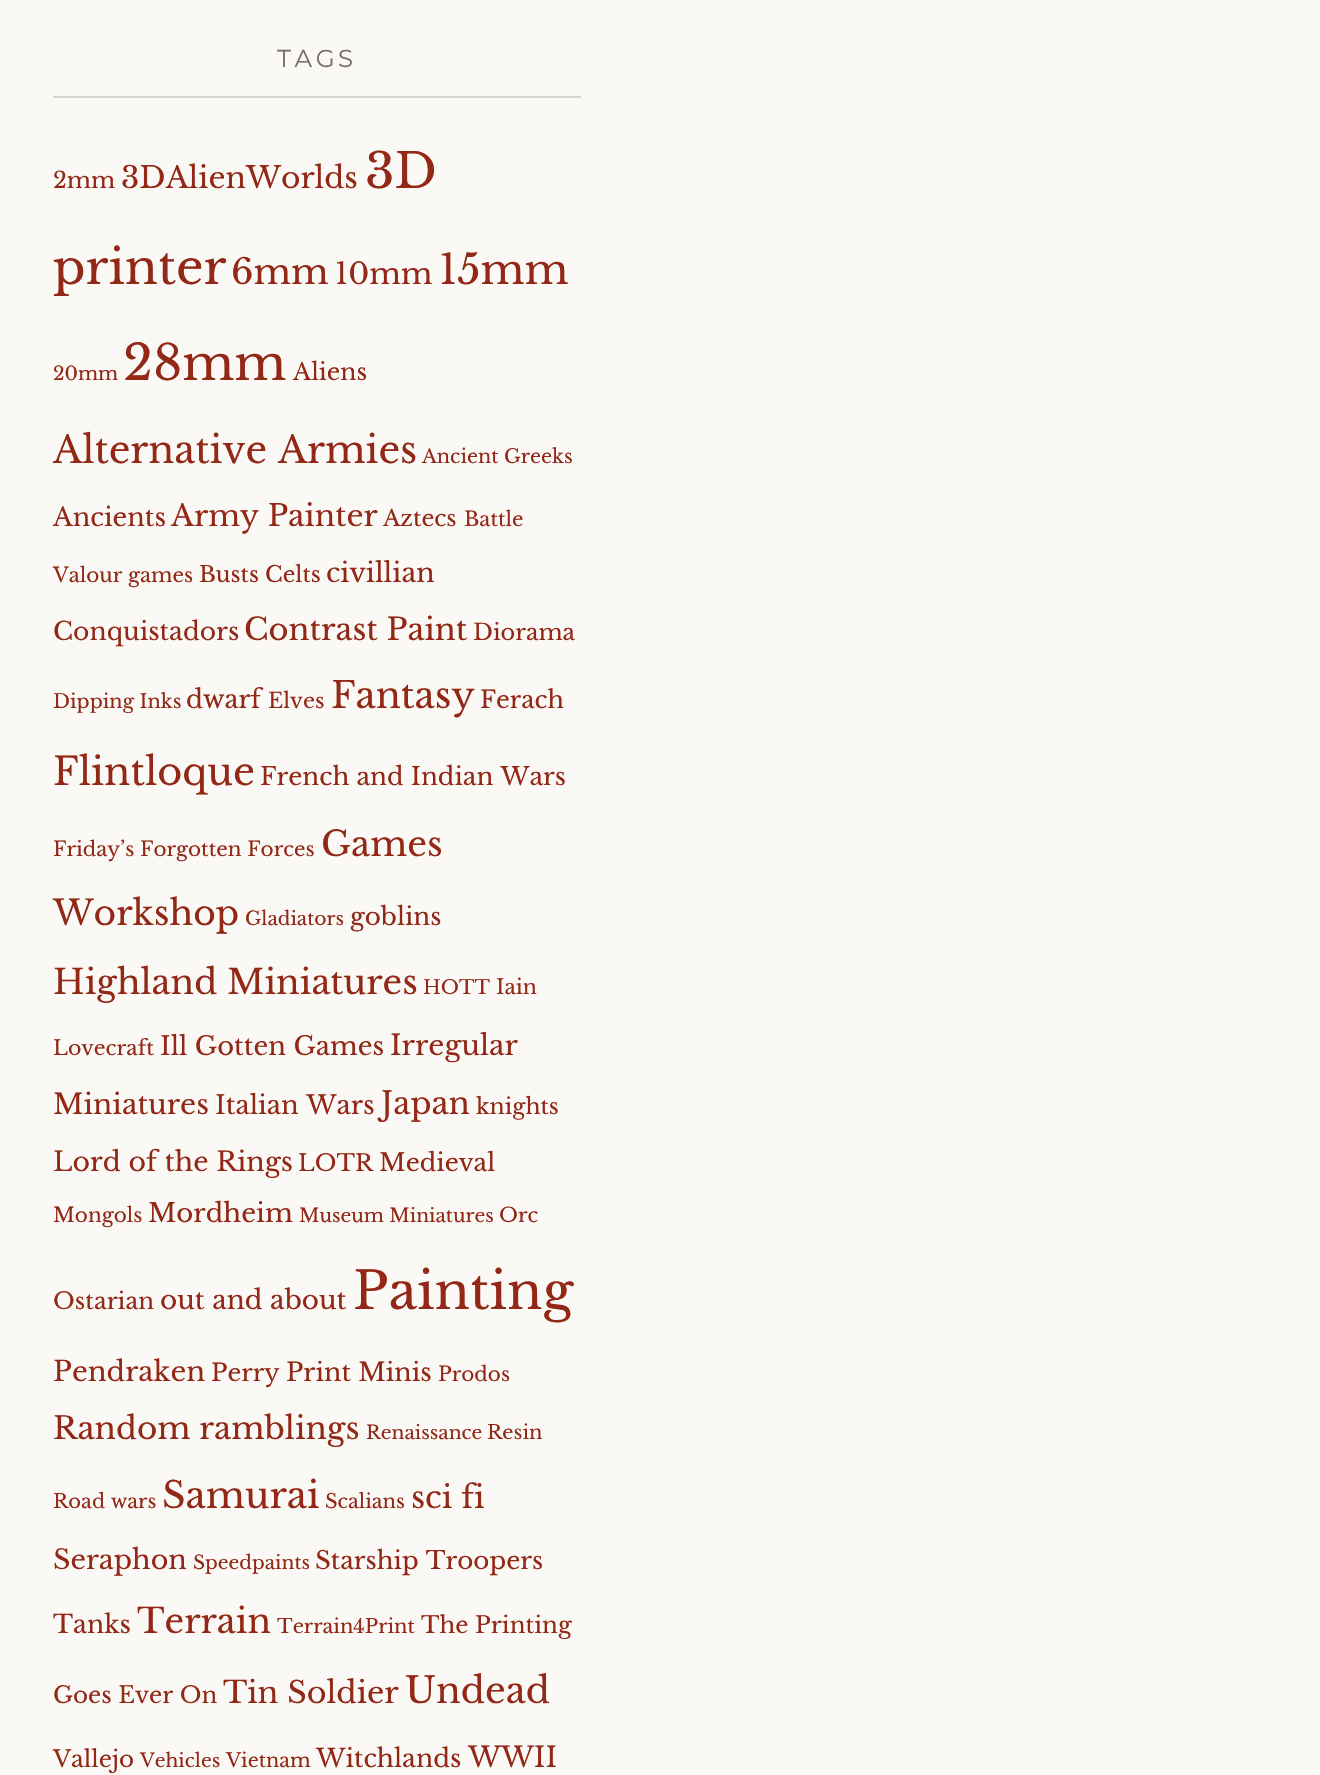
void draw(SkCanvas* canvas) {
    SkPaint paint;
    paint.setAntiAlias(true);
    auto face = [&](const char* family, int weight, float size, bool italic = false) {
        SkFontStyle style(weight, SkFontStyle::kNormal_Width,
            italic ? SkFontStyle::kItalic_Slant : SkFontStyle::kUpright_Slant);
        SkFont result(fontMgr->matchFamilyStyle(family, style), size);
        result.setSubpixel(true);
        return result;
    };
    auto write = [&](const char* s, float x, float y, const SkFont& font, SkColor color) {
        SkPaint ink(SkColor4f::FromColor(color));
        ink.setAntiAlias(true);
        canvas->drawString(s, x, y, font, ink);
    };
    auto writeSpaced = [&](const char* s, float x, float y, const SkFont& font, const SkPaint& ink, float letter, float word) {
        std::vector<SkGlyphID> glyphs(font.countText(s, strlen(s), SkTextEncoding::kUTF8));
        std::vector<float> xs(glyphs.size());
        font.textToGlyphs(s, strlen(s), SkTextEncoding::kUTF8, glyphs);
        font.getXPos(glyphs, xs, x);
        float extra = 0;
        for (size_t i = 0; i < glyphs.size(); i++) {
            xs[i] += extra;
            extra += letter + word * (glyphs[i] == font.unicharToGlyph(' '));
        }
        canvas->drawTextBlob(SkTextBlob::MakeFromPosHGlyphs(glyphs, xs, y, font), 0, 0, ink);
    };
    auto block = [&](float x, float y, float w, float h, SkColor color) {
        SkPaint ink(SkColor4f::FromColor(color));
        ink.setAntiAlias(true);
        canvas->drawRect(SkRect::MakeXYWH(x, y, w, h), ink);
    };
    canvas->clear(SkColorSetRGB(250, 249, 245));
    block(53, 96, 528, 2, SkColorSetRGB(217, 214, 208));
    auto kFont1 = face("Montserrat", 100, 24.5f);
    paint.setColor(SkColorSetRGB(120, 112, 101));
    writeSpaced("TAGS", 277, 67, kFont1, paint, 3.5f, 0);
    auto kFont2 = face("Libre Baskerville", 400, 22.5f);
    write("2mm", 53, 188, kFont2, SkColorSetRGB(147, 40, 23));
    auto kFont3 = face("Libre Baskerville", 400, 29.75f);
    write("3DAlienWorlds", 121, 188, kFont3, SkColorSetRGB(147, 40, 23));
    auto kFont4 = face("Libre Baskerville", 400, 48);
    write("3D", 365, 188, kFont4, SkColorSetRGB(147, 40, 23));
    write("printer", 53, 284, kFont4, SkColorSetRGB(147, 40, 23));
    auto kFont5 = face("Libre Baskerville", 400, 35);
    write("6mm", 231, 284, kFont5, SkColorSetRGB(147, 40, 23));
    auto kFont6 = face("Libre Baskerville", 400, 29.5f);
    write("10mm", 335, 284, kFont6, SkColorSetRGB(147, 40, 23));
    auto kFont7 = face("Libre Baskerville", 400, 41);
    write("15mm", 439, 284, kFont7, SkColorSetRGB(147, 40, 23));
    auto kFont8 = face("Libre Baskerville", 400, 18.75f);
    write("20mm", 53, 380, kFont8, SkColorSetRGB(147, 40, 23));
    auto kFont9 = face("Libre Baskerville", 400, 48.5f);
    write("28mm", 123, 380, kFont9, SkColorSetRGB(147, 40, 23));
    auto kFont10 = face("Libre Baskerville", 400, 23.5f);
    write("Aliens", 293, 380, kFont10, SkColorSetRGB(147, 40, 23));
    auto kFont11 = face("Libre Baskerville", 400, 37.75f);
    write("Alternative Armies", 53, 463, kFont11, SkColorSetRGB(147, 40, 23));
    auto kFont12 = face("Libre Baskerville", 400, 19.25f);
    write("Ancient Greeks", 422, 463, kFont12, SkColorSetRGB(147, 40, 23));
    auto kFont13 = face("Libre Baskerville", 400, 25.5f);
    write("Ancients", 53, 526, kFont13, SkColorSetRGB(147, 40, 23));
    write("Army Painter", 171, 526, kFont3, SkColorSetRGB(147, 40, 23));
    write("Aztecs", 383, 526, kFont2, SkColorSetRGB(147, 40, 23));
    auto kFont14 = face("Libre Baskerville", 400, 20);
    write("Battle", 464, 526, kFont14, SkColorSetRGB(147, 40, 23));
    write("Valour games", 53, 582, kFont14, SkColorSetRGB(147, 40, 23));
    auto kFont15 = face("Libre Baskerville", 400, 22);
    write("Busts", 199, 582, kFont15, SkColorSetRGB(147, 40, 23));
    write("Celts", 265, 582, kFont15, SkColorSetRGB(147, 40, 23));
    auto kFont16 = face("Libre Baskerville", 400, 26.75f);
    write("civillian", 326, 582, kFont16, SkColorSetRGB(147, 40, 23));
    auto kFont17 = face("Libre Baskerville", 400, 25);
    write("Conquistadors", 53, 640, kFont17, SkColorSetRGB(147, 40, 23));
    auto kFont18 = face("Libre Baskerville", 400, 30.5f);
    write("Contrast Paint", 244, 640, kFont18, SkColorSetRGB(147, 40, 23));
    write("Diorama", 473, 640, kFont2, SkColorSetRGB(147, 40, 23));
    write("Dipping Inks", 53, 708, kFont12, SkColorSetRGB(147, 40, 23));
    auto kFont19 = face("Libre Baskerville", 400, 25.25f);
    write("dwarf", 186, 708, kFont19, SkColorSetRGB(147, 40, 23));
    auto kFont20 = face("Libre Baskerville", 400, 21);
    write("Elves", 268, 708, kFont20, SkColorSetRGB(147, 40, 23));
    auto kFont21 = face("Libre Baskerville", 400, 36.5f);
    write("Fantasy", 331, 708, kFont21, SkColorSetRGB(147, 40, 23));
    auto kFont22 = face("Libre Baskerville", 400, 24);
    write("Ferach", 480, 708, kFont22, SkColorSetRGB(147, 40, 23));
    auto kFont23 = face("Libre Baskerville", 400, 38.25f);
    write("Flintloque", 53, 785, kFont23, SkColorSetRGB(147, 40, 23));
    auto kFont24 = face("Libre Baskerville", 400, 24.6f);
    write("French and Indian Wars", 260, 785, kFont24, SkColorSetRGB(147, 40, 23));
    write("Friday’s Forgotten Forces", 53, 856, kFont14, SkColorSetRGB(147, 40, 23));
    auto kFont25 = face("Libre Baskerville", 400, 34.5f);
    write("Games", 321, 856, kFont25, SkColorSetRGB(147, 40, 23));
    write("Workshop", 53, 925, kFont25, SkColorSetRGB(147, 40, 23));
    write("Gladiators", 245, 925, kFont8, SkColorSetRGB(147, 40, 23));
    write("goblins", 350, 925, kFont24, SkColorSetRGB(147, 40, 23));
    auto kFont26 = face("Libre Baskerville", 400, 34.25f);
    write("Highland Miniatures", 53, 994, kFont26, SkColorSetRGB(147, 40, 23));
    write("HOTT", 423, 994, kFont12, SkColorSetRGB(147, 40, 23));
    auto kFont27 = face("Libre Baskerville", 400, 20.5f);
    write("Iain", 496, 994, kFont27, SkColorSetRGB(147, 40, 23));
    write("Lovecraft", 53, 1055, kFont27, SkColorSetRGB(147, 40, 23));
    auto kFont28 = face("Libre Baskerville", 400, 25.75f);
    write("Ill Gotten Games", 160, 1055, kFont28, SkColorSetRGB(147, 40, 23));
    auto kFont29 = face("Libre Baskerville", 400, 28);
    write("Irregular", 390, 1055, kFont29, SkColorSetRGB(147, 40, 23));
    write("Miniatures", 53, 1114, kFont29, SkColorSetRGB(147, 40, 23));
    write("Italian Wars", 215, 1114, kFont28, SkColorSetRGB(147, 40, 23));
    auto kFont30 = face("Libre Baskerville", 400, 31);
    write("Japan", 381, 1114, kFont30, SkColorSetRGB(147, 40, 23));
    write("knights", 476, 1114, kFont15, SkColorSetRGB(147, 40, 23));
    write("Lord of the Rings", 53, 1171, kFont16, SkColorSetRGB(147, 40, 23));
    auto kFont31 = face("Libre Baskerville", 400, 23);
    write("LOTR", 298, 1171, kFont31, SkColorSetRGB(147, 40, 23));
    auto kFont32 = face("Libre Baskerville", 400, 24.5f);
    write("Medieval", 379, 1171, kFont32, SkColorSetRGB(147, 40, 23));
    write("Mongols", 53, 1222, kFont14, SkColorSetRGB(147, 40, 23));
    auto kFont33 = face("Libre Baskerville", 400, 26);
    write("Mordheim", 148, 1222, kFont33, SkColorSetRGB(147, 40, 23));
    write("Museum Miniatures", 299, 1222, kFont8, SkColorSetRGB(147, 40, 23));
    write("Orc", 499, 1222, kFont14, SkColorSetRGB(147, 40, 23));
    write("Ostarian", 53, 1309, kFont31, SkColorSetRGB(147, 40, 23));
    auto kFont34 = face("Libre Baskerville", 400, 26.25f);
    write("out and about", 160, 1309, kFont34, SkColorSetRGB(147, 40, 23));
    auto kFont35 = face("Libre Baskerville", 400, 51.5f);
    write("Painting", 353, 1309, kFont35, SkColorSetRGB(147, 40, 23));
    auto kFont36 = face("Libre Baskerville", 400, 27.5f);
    write("Pendraken", 53, 1381, kFont36, SkColorSetRGB(147, 40, 23));
    write("Perry", 211, 1381, kFont22, SkColorSetRGB(147, 40, 23));
    write("Print Minis", 286, 1381, kFont19, SkColorSetRGB(147, 40, 23));
    write("Prodos", 438, 1381, kFont14, SkColorSetRGB(147, 40, 23));
    write("Random ramblings", 53, 1439, kFont30, SkColorSetRGB(147, 40, 23));
    write("Renaissance", 366, 1439, kFont8, SkColorSetRGB(147, 40, 23));
    auto kFont37 = face("Libre Baskerville", 400, 19.5f);
    write("Resin", 487, 1439, kFont37, SkColorSetRGB(147, 40, 23));
    write("Road wars", 53, 1508, kFont37, SkColorSetRGB(147, 40, 23));
    write("Samurai", 162, 1508, kFont21, SkColorSetRGB(147, 40, 23));
    write("Scalians", 325, 1508, kFont37, SkColorSetRGB(147, 40, 23));
    write("sci fi", 411, 1508, kFont30, SkColorSetRGB(147, 40, 23));
    auto kFont38 = face("Libre Baskerville", 400, 27);
    write("Seraphon", 53, 1569, kFont38, SkColorSetRGB(147, 40, 23));
    write("Speedpaints", 193, 1569, kFont8, SkColorSetRGB(147, 40, 23));
    write("Starship Troopers", 315, 1569, kFont24, SkColorSetRGB(147, 40, 23));
    write("Tanks", 53, 1633, kFont17, SkColorSetRGB(147, 40, 23));
    write("Terrain", 137, 1633, kFont26, SkColorSetRGB(147, 40, 23));
    write("Terrain4Print", 277, 1633, kFont37, SkColorSetRGB(147, 40, 23));
    write("The Printing", 421, 1633, kFont31, SkColorSetRGB(147, 40, 23));
    write("Goes Ever On", 53, 1703, kFont31, SkColorSetRGB(147, 40, 23));
    auto kFont39 = face("Libre Baskerville", 400, 30.25f);
    write("Tin Soldier", 223, 1703, kFont39, SkColorSetRGB(147, 40, 23));
    auto kFont40 = face("Libre Baskerville", 400, 36);
    write("Undead", 405, 1703, kFont40, SkColorSetRGB(147, 40, 23));
    write("Vallejo", 53, 1767, kFont31, SkColorSetRGB(147, 40, 23));
    write("Vehicles", 140, 1767, kFont8, SkColorSetRGB(147, 40, 23));
    write("Vietnam", 226, 1767, kFont12, SkColorSetRGB(147, 40, 23));
    write("Witchlands", 316, 1767, kFont17, SkColorSetRGB(147, 40, 23));
    write("WWII", 468, 1767, kFont29, SkColorSetRGB(147, 40, 23));
}
